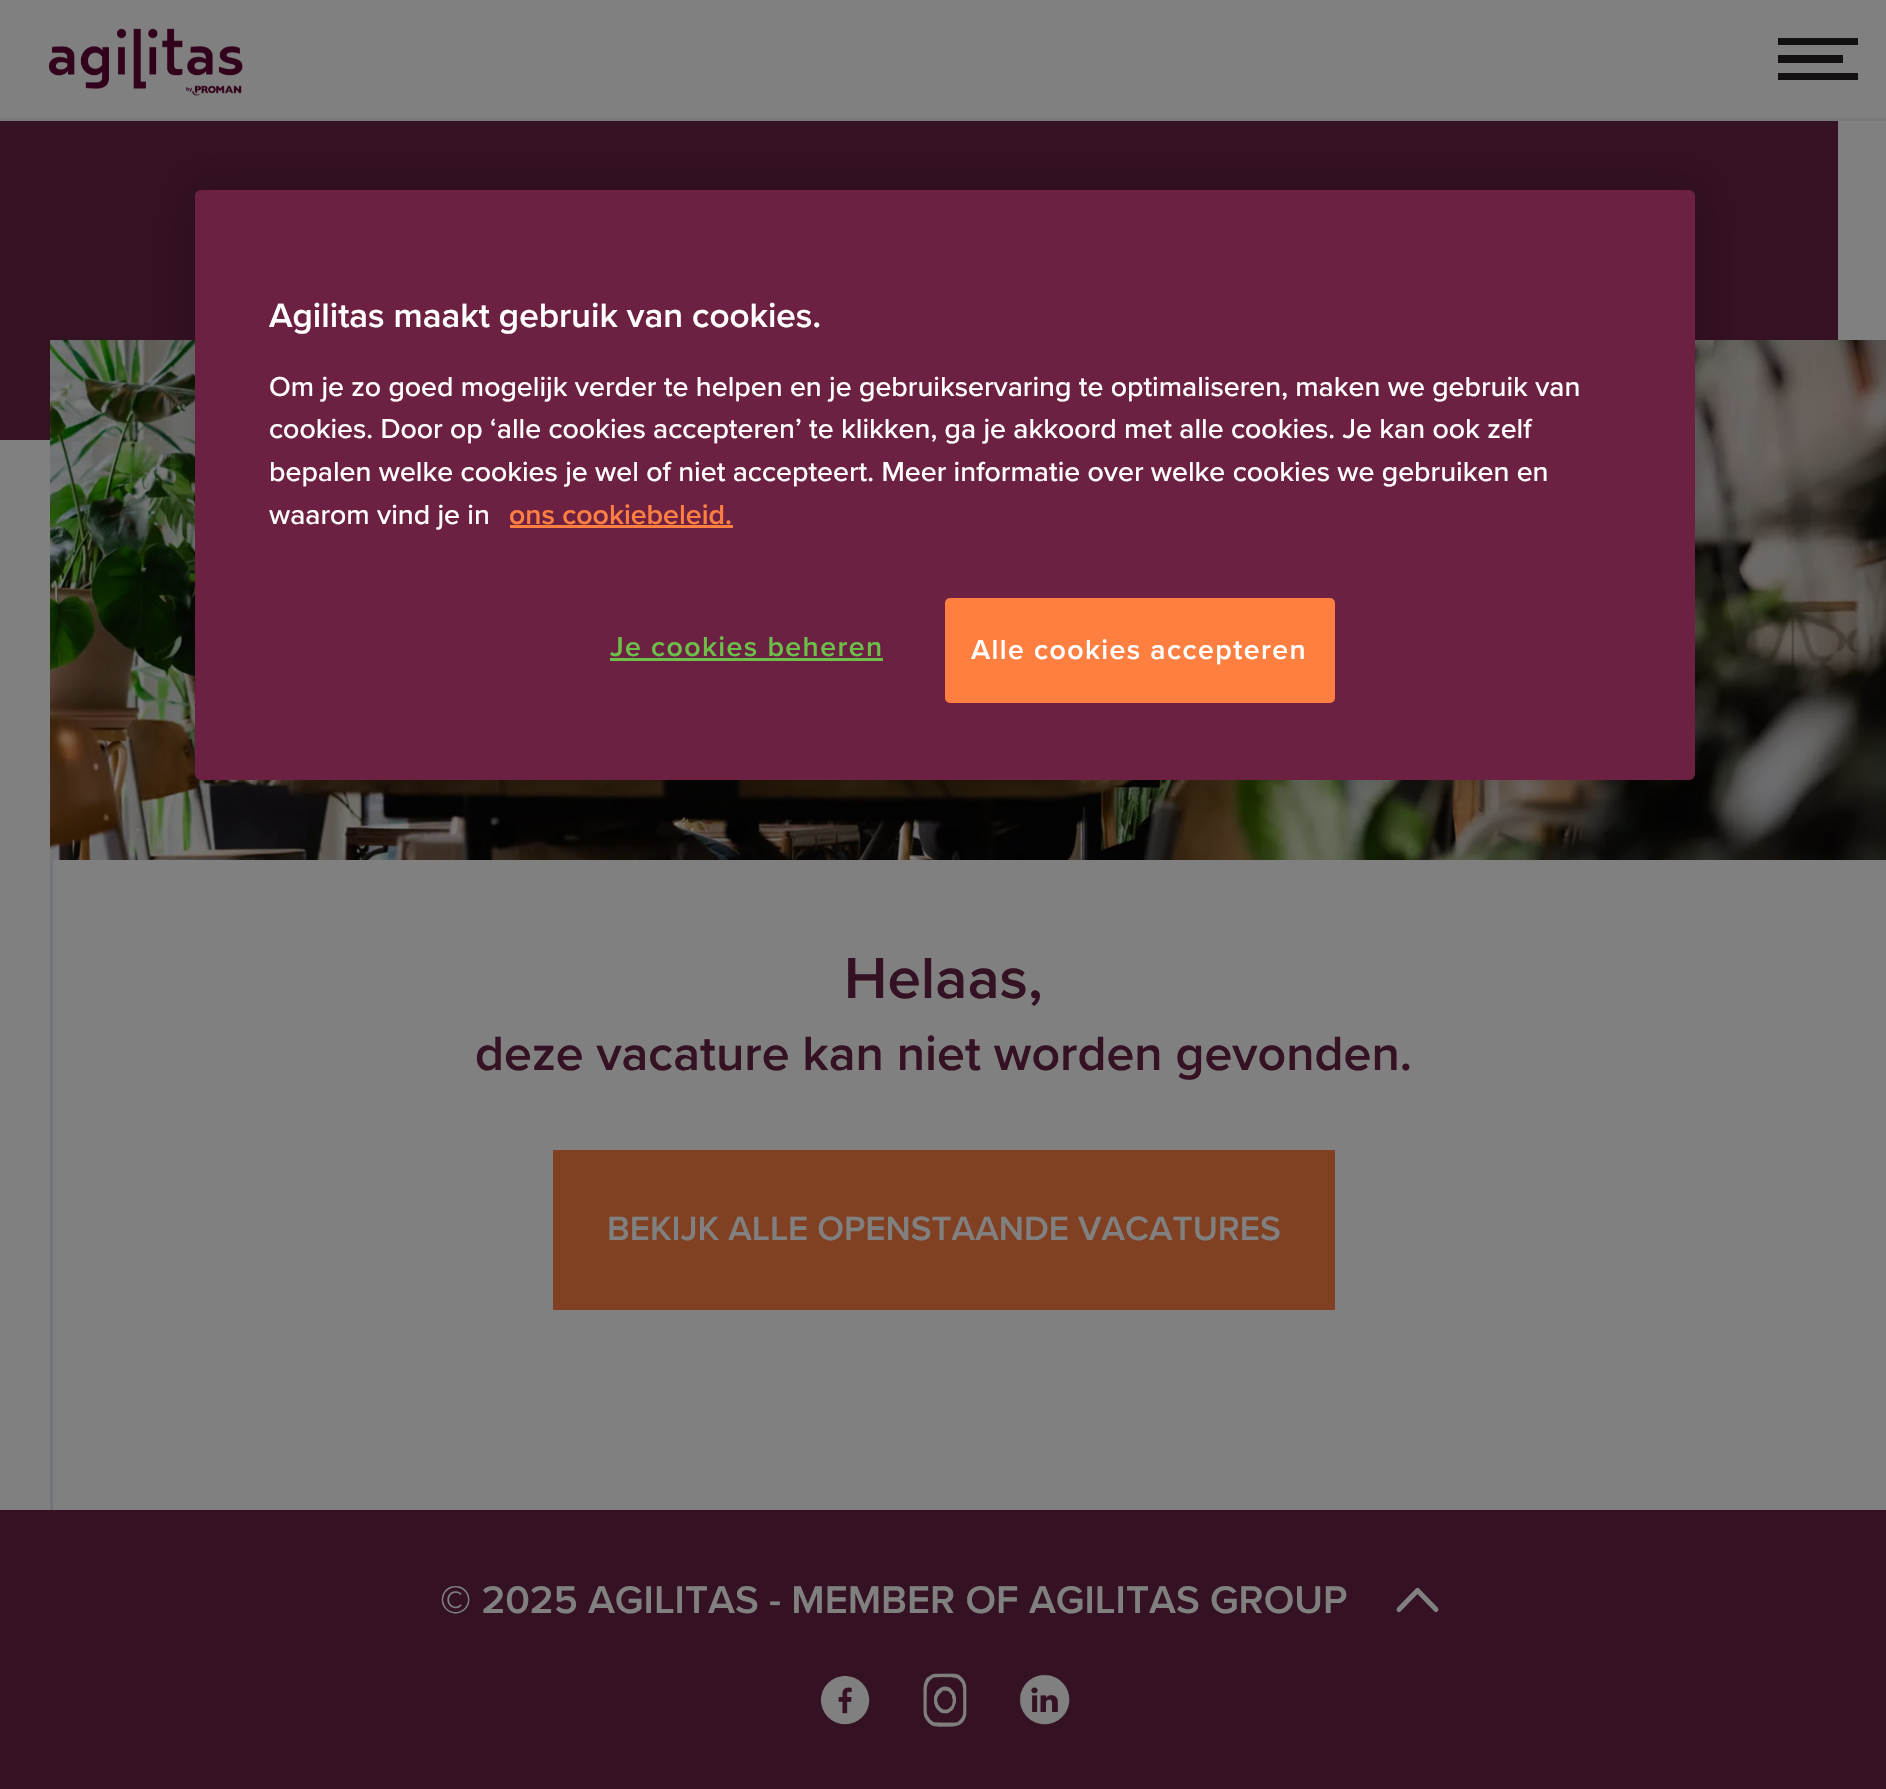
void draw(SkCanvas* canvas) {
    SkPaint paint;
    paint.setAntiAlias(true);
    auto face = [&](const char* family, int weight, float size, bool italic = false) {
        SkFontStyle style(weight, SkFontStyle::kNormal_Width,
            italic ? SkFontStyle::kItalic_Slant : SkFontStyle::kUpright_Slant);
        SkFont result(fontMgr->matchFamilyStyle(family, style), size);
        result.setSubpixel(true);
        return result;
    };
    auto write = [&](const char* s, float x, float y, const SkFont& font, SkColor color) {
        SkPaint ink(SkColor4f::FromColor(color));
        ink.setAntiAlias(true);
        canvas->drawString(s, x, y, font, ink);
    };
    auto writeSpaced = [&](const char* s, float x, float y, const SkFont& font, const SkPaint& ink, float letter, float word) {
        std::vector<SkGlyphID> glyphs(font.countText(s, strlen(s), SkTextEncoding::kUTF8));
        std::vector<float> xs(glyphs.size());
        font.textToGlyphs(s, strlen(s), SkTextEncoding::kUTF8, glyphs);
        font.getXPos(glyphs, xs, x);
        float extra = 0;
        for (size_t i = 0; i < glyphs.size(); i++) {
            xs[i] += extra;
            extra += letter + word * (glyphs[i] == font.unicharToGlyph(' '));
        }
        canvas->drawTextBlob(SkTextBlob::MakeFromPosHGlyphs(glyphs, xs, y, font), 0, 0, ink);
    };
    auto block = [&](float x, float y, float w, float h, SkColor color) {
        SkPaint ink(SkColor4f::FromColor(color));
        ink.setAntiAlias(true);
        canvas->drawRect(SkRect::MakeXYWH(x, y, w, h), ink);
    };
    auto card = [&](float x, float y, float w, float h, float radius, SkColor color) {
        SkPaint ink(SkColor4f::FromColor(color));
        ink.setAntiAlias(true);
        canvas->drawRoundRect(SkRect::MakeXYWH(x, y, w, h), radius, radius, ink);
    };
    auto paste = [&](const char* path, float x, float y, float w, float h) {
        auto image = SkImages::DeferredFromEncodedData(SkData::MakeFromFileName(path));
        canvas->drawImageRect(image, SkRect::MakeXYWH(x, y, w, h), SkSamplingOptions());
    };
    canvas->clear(SkColorSetRGB(128, 128, 128));
    block(0, 118, 1886, 3, SkColorSetRGB(119, 121, 122));
    paste("pic1.png", 48, 28, 195, 68);
    block(1778, 38, 80, 7, SkColorSetRGB(18, 16, 16));
    block(1778, 55, 65, 8, SkColorSetRGB(18, 16, 16));
    block(1778, 73, 80, 7, SkColorSetRGB(18, 16, 16));
    block(0, 121, 1838, 319, SkColorSetRGB(52, 17, 35));
    paste("pic2.png", 50, 340, 1836, 520);
    paint.setColor(SkColorSetARGB(51, 0, 0, 0));
    paint.setMaskFilter(SkMaskFilter::MakeBlur(kNormal_SkBlurStyle, 22.5f));
    canvas->drawRoundRect(SkRect::MakeXYWH(195, 190, 1500, 590), 6, 6, paint);
    paint.setMaskFilter(nullptr);
    card(195, 190, 1500, 590, 6, SkColorSetRGB(108, 33, 66));
    auto kFont1 = face("Proxima Nova", 600, 35);
    write("Agilitas maakt gebruik van cookies.", 269, 327, kFont1, SK_ColorWHITE);
    auto kFont2 = face("Proxima Nova", 500, 28.45f);
    write("Om je zo goed mogelijk verder te helpen en je gebruikservaring te optimaliseren, maken we gebruik van", 269, 396, kFont2, SK_ColorWHITE);
    write("cookies. Door op ‘alle cookies accepteren’ te klikken, ga je akkoord met alle cookies. Je kan ook zelf", 269, 438, kFont2, SK_ColorWHITE);
    write("bepalen welke cookies je wel of niet accepteert. Meer informatie over welke cookies we gebruiken en", 269, 481, kFont2, SK_ColorWHITE);
    write("waarom vind je in", 269, 524, kFont2, SK_ColorWHITE);
    auto kFont3 = face("Proxima Nova", 600, 28.45f);
    write("ons cookiebeleid.", 509, 524, kFont3, SkColorSetRGB(255, 127, 65));
    block(510, 525, 223, 3, SkColorSetRGB(255, 127, 65));
    paint.setColor(SkColorSetRGB(108, 192, 74));
    writeSpaced("Je cookies beheren", 610, 656, kFont3, paint, 1.4f, 0);
    block(610, 658, 273, 3, SkColorSetRGB(108, 192, 74));
    paint.setColor(SkColorSetRGB(255, 127, 65));
    canvas->drawRoundRect(SkRect::MakeXYWH(946.5f, 599.5f, 387, 102), 3.5f, 3.5f, paint);
    paint.setStyle(SkPaint::kStroke_Style);
    paint.setStrokeWidth(3);
    canvas->drawRoundRect(SkRect::MakeXYWH(946.5f, 599.5f, 387, 102), 3.5f, 3.5f, paint);
    paint.setStyle(SkPaint::kFill_Style);
    paint.setColor(SK_ColorWHITE);
    writeSpaced("Alle cookies accepteren", 971, 659, kFont3, paint, 1.4f, 0);
    block(50, 860, 3, 650, SkColorSetRGB(113, 116, 120));
    auto kFont4 = face("Proxima Nova", 600, 60);
    write("Helaas,", 844, 998, kFont4, SkColorSetRGB(52, 17, 35));
    auto kFont5 = face("Proxima Nova", 600, 50);
    write("deze vacature kan niet worden gevonden.", 475, 1070, kFont5, SkColorSetRGB(52, 17, 35));
    block(553, 1150, 782, 160, SkColorSetRGB(128, 64, 33));
    write("BEKIJK ALLE OPENSTAANDE VACATURES", 607, 1240, kFont1, SkColorSetRGB(128, 128, 128));
    block(0, 1510, 1886, 279, SkColorSetRGB(52, 17, 35));
    auto kFont6 = face("Proxima Nova", 600, 40);
    write("© 2025 AGILITAS - MEMBER OF AGILITAS GROUP", 440, 1613, kFont6, SkColorSetRGB(128, 128, 128));
    paint.setStyle(SkPaint::kStroke_Style);
    paint.setStrokeWidth(5);
    paint.setStrokeCap(SkPaint::kRound_Cap);
    paint.setStrokeJoin(SkPaint::kRound_Join);
    paint.setColor(SkColorSetRGB(128, 128, 128));
    canvas->drawPath(SkPathBuilder().moveTo(1399, 1609.5f).lineTo(1417.5f, 1590.5f).lineTo(1436, 1609.5f).detach(), paint);
    paste("pic3.png", 820, 1675, 50, 50);
    paste("pic4.png", 923, 1673, 44, 54);
    paste("pic5.png", 1019, 1674, 51, 51);
}
